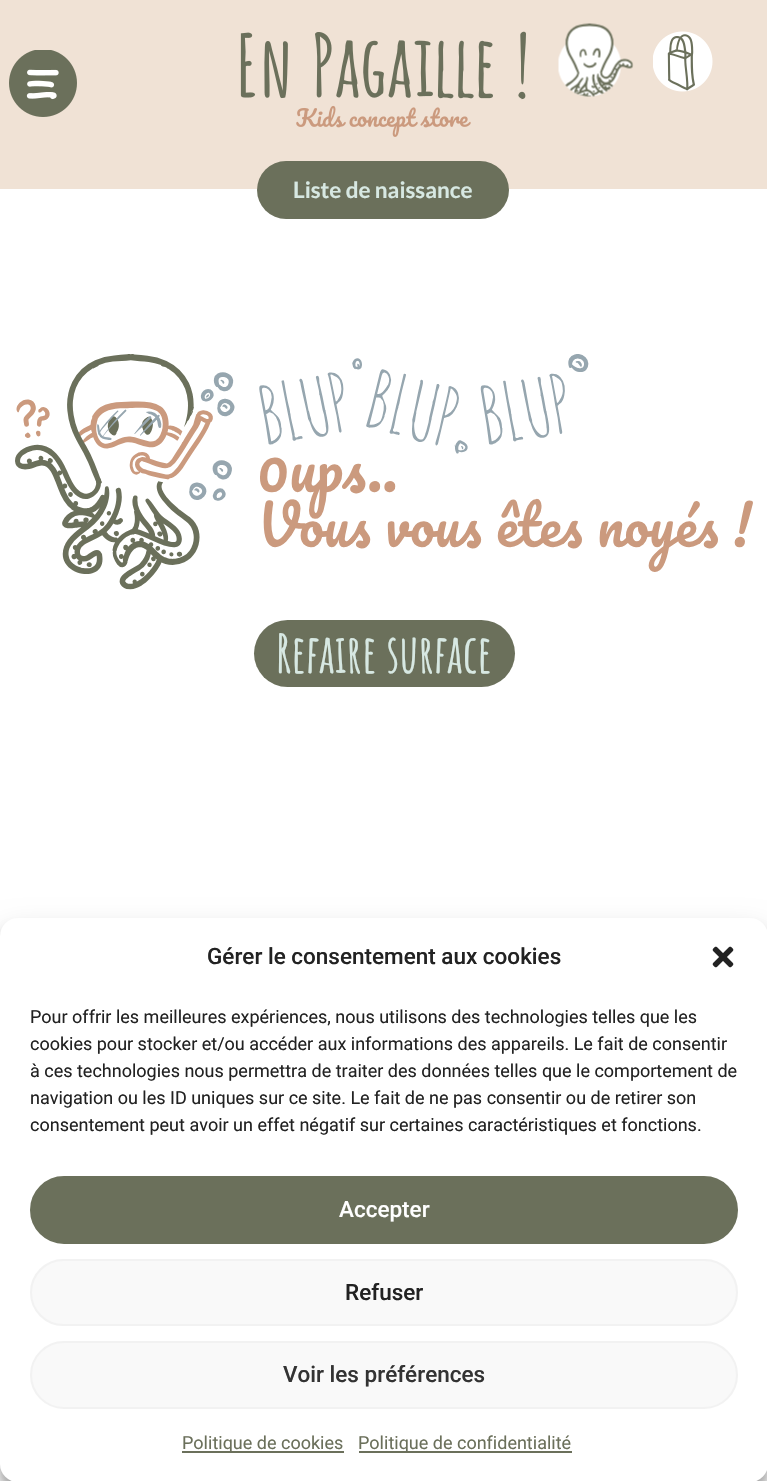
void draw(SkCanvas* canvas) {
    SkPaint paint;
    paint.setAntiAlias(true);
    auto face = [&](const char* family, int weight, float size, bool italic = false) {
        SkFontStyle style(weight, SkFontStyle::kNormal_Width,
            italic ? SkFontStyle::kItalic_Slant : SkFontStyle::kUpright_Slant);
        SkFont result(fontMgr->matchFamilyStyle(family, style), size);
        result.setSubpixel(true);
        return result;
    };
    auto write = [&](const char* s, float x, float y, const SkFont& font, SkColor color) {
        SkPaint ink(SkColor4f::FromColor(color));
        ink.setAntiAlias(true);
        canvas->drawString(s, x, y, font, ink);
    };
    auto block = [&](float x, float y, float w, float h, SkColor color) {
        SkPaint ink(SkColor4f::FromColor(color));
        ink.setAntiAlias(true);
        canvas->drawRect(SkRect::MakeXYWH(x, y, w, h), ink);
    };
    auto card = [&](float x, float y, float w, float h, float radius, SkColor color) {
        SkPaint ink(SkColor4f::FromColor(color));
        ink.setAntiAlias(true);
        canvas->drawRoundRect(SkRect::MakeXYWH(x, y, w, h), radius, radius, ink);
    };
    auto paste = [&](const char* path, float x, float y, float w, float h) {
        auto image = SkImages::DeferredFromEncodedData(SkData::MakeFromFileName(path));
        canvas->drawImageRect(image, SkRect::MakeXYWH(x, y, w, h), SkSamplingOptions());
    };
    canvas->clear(SK_ColorWHITE);
    block(0, 0, 767, 189, SkColorSetRGB(240, 226, 213));
    paste("pic1.png", 9, 50, 68, 67);
    paste("pic2.png", 240, 31, 286, 106);
    paste("pic3.png", 558, 23, 76, 74);
    paste("pic4.png", 653, 31, 60, 61);
    card(257, 161, 252, 58, 29, SkColorSetRGB(107, 112, 91));
    auto kFont1 = face("Lato", 700, 22.5f);
    write("Liste de naissance", 293, 198, kFont1, SkColorSetRGB(215, 232, 226));
    paste("pic5.png", 15, 354, 738, 236);
    card(254, 620, 261, 67, 33.5f, SkColorSetRGB(107, 112, 91));
    auto kFont2 = face("Amatic SC", 700, 52.5f);
    write("Refaire surface", 276, 673, kFont2, SkColorSetRGB(215, 232, 226));
    paint.setColor(SkColorSetARGB(59, 0, 0, 0));
    paint.setMaskFilter(SkMaskFilter::MakeBlur(kNormal_SkBlurStyle, 4.5f));
    canvas->drawRoundRect(SkRect::MakeXYWH(0, 927, 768, 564), 18, 18, paint);
    paint.setMaskFilter(nullptr);
    paint.setColor(SkColorSetARGB(48, 0, 0, 0));
    paint.setMaskFilter(SkMaskFilter::MakeBlur(kNormal_SkBlurStyle, 15));
    canvas->drawRoundRect(SkRect::MakeXYWH(0, 933, 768, 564), 18, 18, paint);
    paint.setMaskFilter(nullptr);
    card(0, 918, 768, 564, 18, SK_ColorWHITE);
    auto kFont3 = face("Roboto", 500, 22.5f);
    write("Gérer le consentement aux cookies", 207, 964, kFont3, SkColorSetRGB(34, 34, 34));
    paste("pic6.png", 712, 946, 22, 22);
    auto kFont4 = face("Roboto", 400, 18);
    write("Pour offrir les meilleures expériences, nous utilisons des technologies telles que les", 30, 1023, kFont4, SkColorSetRGB(34, 34, 34));
    write("cookies pour stocker et/ou accéder aux informations des appareils. Le fait de consentir", 30, 1050, kFont4, SkColorSetRGB(34, 34, 34));
    write("à ces technologies nous permettra de traiter des données telles que le comportement de", 30, 1077, kFont4, SkColorSetRGB(34, 34, 34));
    write("navigation ou les ID uniques sur ce site. Le fait de ne pas consentir ou de retirer son", 30, 1104, kFont4, SkColorSetRGB(34, 34, 34));
    write("consentement peut avoir un effet négatif sur certaines caractéristiques et fonctions.", 30, 1131, kFont4, SkColorSetRGB(34, 34, 34));
    paint.setColor(SkColorSetRGB(107, 112, 91));
    canvas->drawRoundRect(SkRect::MakeXYWH(31, 1177, 706, 66), 33, 33, paint);
    paint.setStyle(SkPaint::kStroke_Style);
    paint.setStrokeWidth(2);
    canvas->drawRoundRect(SkRect::MakeXYWH(31, 1177, 706, 66), 33, 33, paint);
    write("Accepter", 339, 1217, kFont3, SK_ColorWHITE);
    paint.setStyle(SkPaint::kFill_Style);
    paint.setColor(SkColorSetRGB(249, 249, 249));
    canvas->drawRoundRect(SkRect::MakeXYWH(31, 1260, 706, 65), 32.5f, 32.5f, paint);
    paint.setStyle(SkPaint::kStroke_Style);
    paint.setColor(SkColorSetRGB(242, 242, 242));
    canvas->drawRoundRect(SkRect::MakeXYWH(31, 1260, 706, 65), 32.5f, 32.5f, paint);
    write("Refuser", 345, 1300, kFont3, SkColorSetRGB(34, 34, 34));
    paint.setStyle(SkPaint::kFill_Style);
    paint.setColor(SkColorSetRGB(249, 249, 249));
    canvas->drawRoundRect(SkRect::MakeXYWH(31, 1342, 706, 66), 33, 33, paint);
    paint.setStyle(SkPaint::kStroke_Style);
    paint.setColor(SkColorSetRGB(242, 242, 242));
    canvas->drawRoundRect(SkRect::MakeXYWH(31, 1342, 706, 66), 33, 33, paint);
    write("Voir les préférences", 283, 1382, kFont3, SkColorSetRGB(51, 51, 51));
    block(182, 1451, 162, 2, SkColorSetRGB(107, 112, 91));
    write("Politique de cookies", 182, 1449, kFont4, SkColorSetRGB(107, 112, 91));
    block(359, 1451, 213, 2, SkColorSetRGB(107, 112, 91));
    write("Politique de confidentialité", 358, 1449, kFont4, SkColorSetRGB(107, 112, 91));
}
